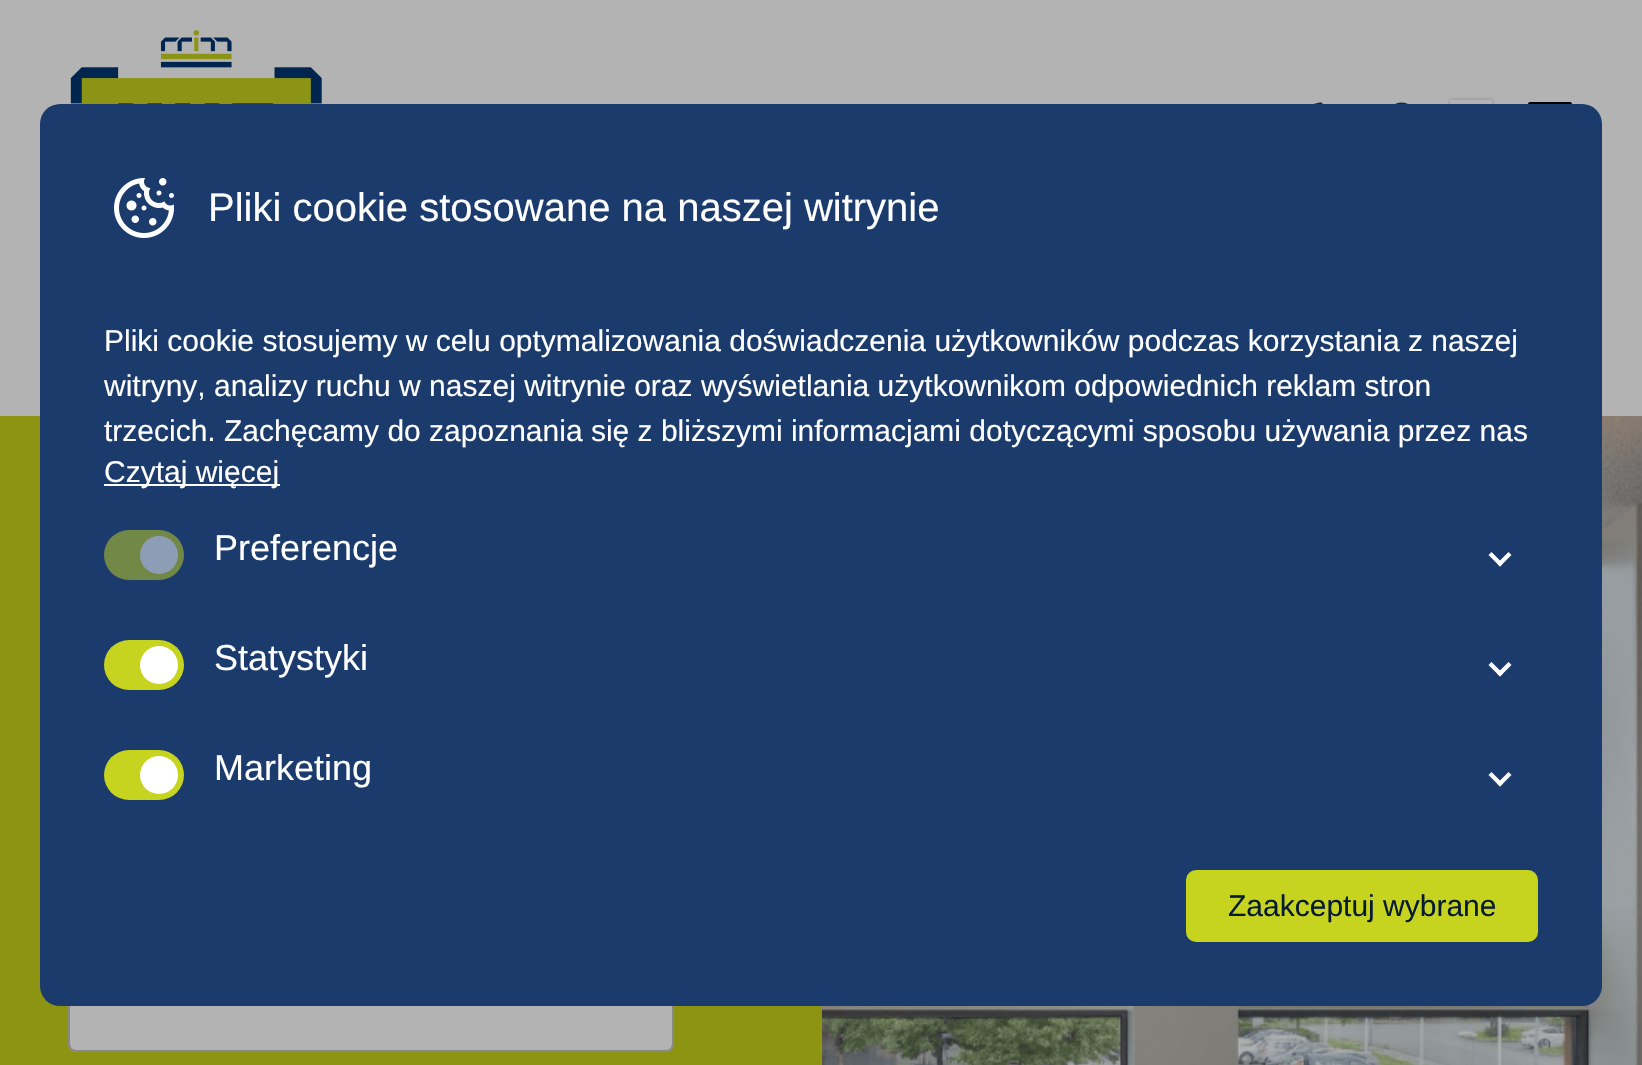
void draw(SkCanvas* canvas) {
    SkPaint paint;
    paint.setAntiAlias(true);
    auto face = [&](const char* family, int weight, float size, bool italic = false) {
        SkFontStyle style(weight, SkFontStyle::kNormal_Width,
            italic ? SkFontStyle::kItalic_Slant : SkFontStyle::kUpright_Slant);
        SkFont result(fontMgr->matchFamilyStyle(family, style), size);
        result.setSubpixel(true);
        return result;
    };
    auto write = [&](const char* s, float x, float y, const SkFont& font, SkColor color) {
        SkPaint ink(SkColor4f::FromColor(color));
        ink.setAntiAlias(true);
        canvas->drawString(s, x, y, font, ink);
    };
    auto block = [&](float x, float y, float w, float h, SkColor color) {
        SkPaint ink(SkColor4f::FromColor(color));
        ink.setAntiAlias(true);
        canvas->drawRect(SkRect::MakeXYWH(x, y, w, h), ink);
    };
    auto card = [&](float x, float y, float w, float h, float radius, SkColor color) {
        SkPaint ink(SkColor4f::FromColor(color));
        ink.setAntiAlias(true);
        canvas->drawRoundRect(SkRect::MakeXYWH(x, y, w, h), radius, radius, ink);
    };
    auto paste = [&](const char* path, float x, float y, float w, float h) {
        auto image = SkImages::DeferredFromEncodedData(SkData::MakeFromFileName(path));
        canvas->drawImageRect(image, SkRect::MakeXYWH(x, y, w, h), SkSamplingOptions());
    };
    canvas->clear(SkColorSetRGB(179, 179, 179));
    paste("pic1.png", 70, 30, 252, 74);
    paste("pic2.png", 1313, 102, 10, 2);
    paste("pic3.png", 1395, 102, 13, 2);
    paste("pic4.png", 1447, 97, 48, 7);
    card(1528, 102, 44, 4, 2, SK_ColorBLACK);
    block(0, 416, 822, 649, SkColorSetRGB(141, 148, 18));
    card(68, 956, 606, 96, 8, SkColorSetRGB(179, 179, 179));
    paint.setStyle(SkPaint::kStroke_Style);
    paint.setStrokeWidth(2);
    paint.setColor(SkColorSetARGB(128, 95, 95, 95));
    canvas->drawRoundRect(SkRect::MakeXYWH(69, 957, 604, 94), 7, 7, paint);
    paste("pic6.png", 822, 416, 820, 649);
    card(40, 104, 1562, 902, 20, SkColorSetRGB(26, 59, 108));
    paste("pic5.png", 114, 178, 60, 60);
    auto kFont1 = face("Liberation Sans", 400, 40);
    write("Pliki cookie stosowane na naszej witrynie", 208, 221, kFont1, SK_ColorWHITE);
    auto kFont2 = face("Liberation Sans", 400, 30);
    write("Pliki cookie stosujemy w celu optymalizowania doświadczenia użytkowników podczas korzystania z naszej", 104, 351, kFont2, SK_ColorWHITE);
    write("witryny, analizy ruchu w naszej witrynie oraz wyświetlania użytkownikom odpowiednich reklam stron", 104, 396, kFont2, SK_ColorWHITE);
    write("trzecich. Zachęcamy do zapoznania się z bliższymi informacjami dotyczącymi sposobu używania przez nas", 104, 441, kFont2, SK_ColorWHITE);
    block(104, 484, 176, 2, SK_ColorWHITE);
    write("Czytaj więcej", 104, 482, kFont2, SK_ColorWHITE);
    card(104, 530, 80, 50, 25, SkColorSetRGB(113, 136, 70));
    paint.setStyle(SkPaint::kFill_Style);
    paint.setColor(SkColorSetRGB(141, 157, 182));
    canvas->drawCircle(159, 555, 19, paint);
    auto kFont3 = face("Liberation Sans", 400, 36);
    write("Preferencje", 214, 560, kFont3, SK_ColorWHITE);
    paint.setColor(SK_ColorWHITE);
    canvas->drawPath(SkPathBuilder().moveTo(1508.5f, 552).lineTo(1511.5f, 555).lineTo(1500, 566.5f).lineTo(1497, 563.5f).close().detach(), paint);
    canvas->drawPath(SkPathBuilder().moveTo(1491.5f, 552).lineTo(1503, 563.5f).lineTo(1500, 566.5f).lineTo(1488.5f, 555).close().detach(), paint);
    card(104, 640, 80, 50, 25, SkColorSetRGB(199, 212, 31));
    canvas->drawCircle(159, 665, 19, paint);
    write("Statystyki", 214, 670, kFont3, SK_ColorWHITE);
    canvas->drawPath(SkPathBuilder().moveTo(1508.5f, 662).lineTo(1511.5f, 665).lineTo(1500, 676.5f).lineTo(1497, 673.5f).close().detach(), paint);
    canvas->drawPath(SkPathBuilder().moveTo(1491.5f, 662).lineTo(1503, 673.5f).lineTo(1500, 676.5f).lineTo(1488.5f, 665).close().detach(), paint);
    card(104, 750, 80, 50, 25, SkColorSetRGB(199, 212, 31));
    canvas->drawCircle(159, 775, 19, paint);
    write("Marketing", 214, 780, kFont3, SK_ColorWHITE);
    canvas->drawPath(SkPathBuilder().moveTo(1508.5f, 772).lineTo(1511.5f, 775).lineTo(1500, 786.5f).lineTo(1497, 783.5f).close().detach(), paint);
    canvas->drawPath(SkPathBuilder().moveTo(1491.5f, 772).lineTo(1503, 783.5f).lineTo(1500, 786.5f).lineTo(1488.5f, 775).close().detach(), paint);
    paint.setColor(SkColorSetRGB(199, 212, 31));
    canvas->drawRoundRect(SkRect::MakeXYWH(1187, 871, 350, 70), 9, 9, paint);
    paint.setStyle(SkPaint::kStroke_Style);
    canvas->drawRoundRect(SkRect::MakeXYWH(1187, 871, 350, 70), 9, 9, paint);
    write("Zaakceptuj wybrane", 1228, 916, kFont2, SkColorSetRGB(7, 27, 52));
}
